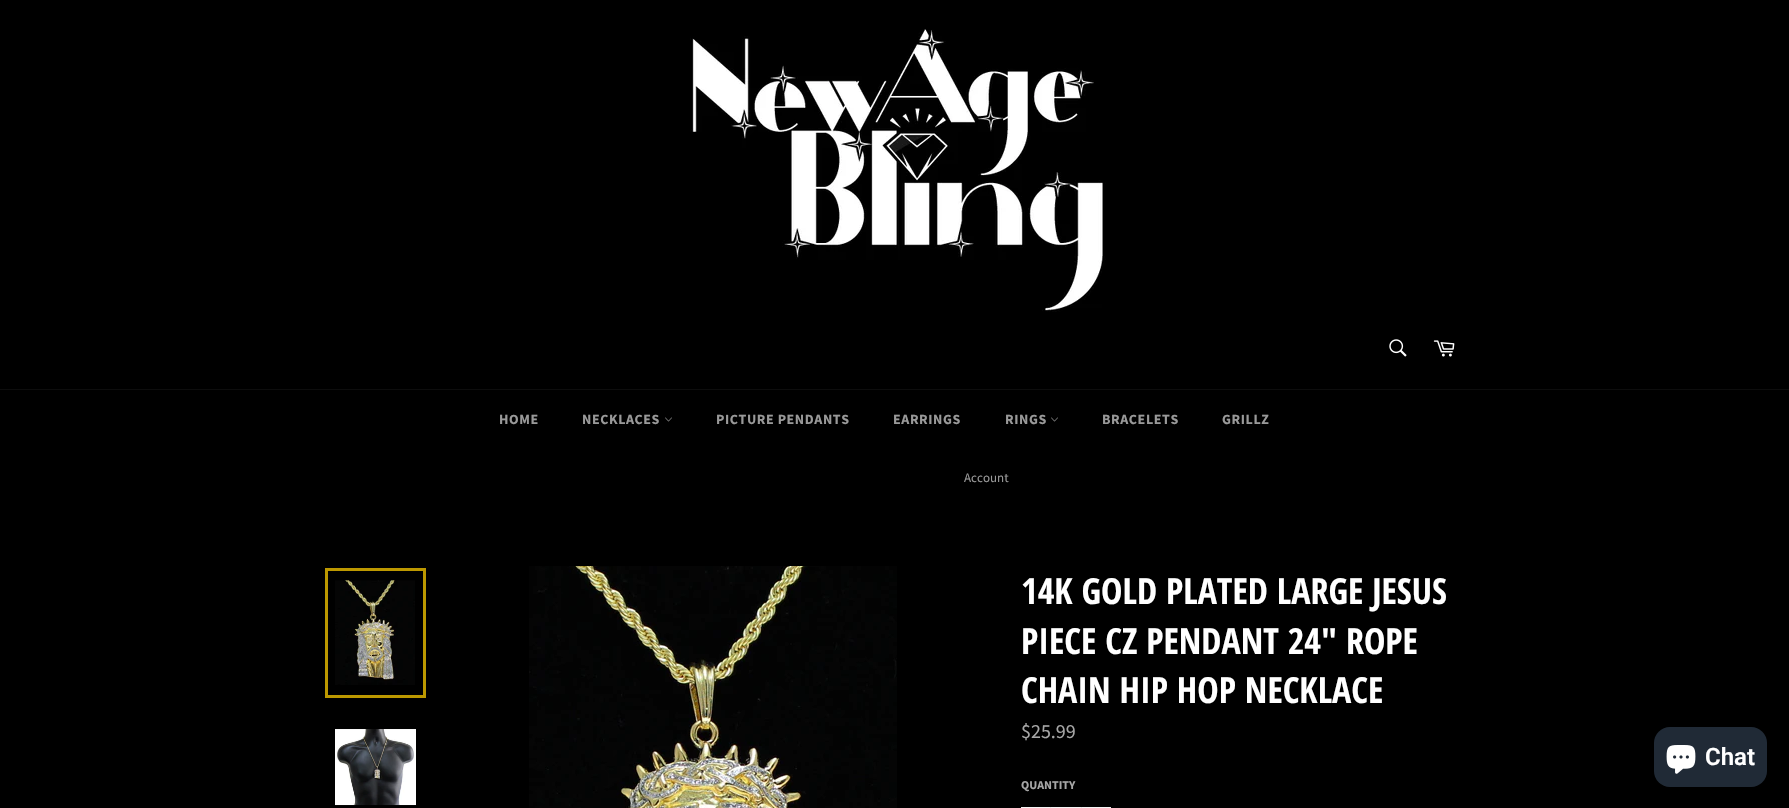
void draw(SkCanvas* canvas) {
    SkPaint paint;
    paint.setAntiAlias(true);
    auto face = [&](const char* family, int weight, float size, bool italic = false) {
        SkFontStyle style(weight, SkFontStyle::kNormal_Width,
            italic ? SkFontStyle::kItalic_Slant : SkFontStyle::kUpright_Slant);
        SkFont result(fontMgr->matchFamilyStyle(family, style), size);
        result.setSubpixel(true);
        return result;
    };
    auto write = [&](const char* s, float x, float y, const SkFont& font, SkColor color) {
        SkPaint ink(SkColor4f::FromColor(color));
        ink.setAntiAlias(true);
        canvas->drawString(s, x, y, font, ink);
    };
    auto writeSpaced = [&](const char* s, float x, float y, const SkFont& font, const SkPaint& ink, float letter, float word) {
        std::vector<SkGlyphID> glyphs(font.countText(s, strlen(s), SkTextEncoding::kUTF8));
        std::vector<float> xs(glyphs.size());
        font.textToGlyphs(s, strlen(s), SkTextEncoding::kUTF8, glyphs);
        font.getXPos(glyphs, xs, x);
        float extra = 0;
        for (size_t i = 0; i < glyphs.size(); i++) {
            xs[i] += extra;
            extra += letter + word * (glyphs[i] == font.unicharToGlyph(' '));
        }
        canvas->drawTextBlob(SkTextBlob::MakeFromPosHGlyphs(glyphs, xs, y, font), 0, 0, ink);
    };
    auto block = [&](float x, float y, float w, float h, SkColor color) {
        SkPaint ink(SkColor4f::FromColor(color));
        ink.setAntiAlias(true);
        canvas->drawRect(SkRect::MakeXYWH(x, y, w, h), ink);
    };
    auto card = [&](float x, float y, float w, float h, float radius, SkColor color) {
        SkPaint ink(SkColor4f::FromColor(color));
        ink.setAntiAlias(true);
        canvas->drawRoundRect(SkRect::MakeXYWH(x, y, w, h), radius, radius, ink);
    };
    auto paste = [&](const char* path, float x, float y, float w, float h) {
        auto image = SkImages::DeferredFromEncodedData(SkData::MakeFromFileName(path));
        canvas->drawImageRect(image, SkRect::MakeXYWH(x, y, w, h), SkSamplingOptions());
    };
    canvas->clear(SK_ColorBLACK);
    paste("pic1.png", 690, 29, 416, 283);
    paste("pic2.png", 1389, 339, 18, 18);
    paste("pic3.png", 1433, 340, 22, 17);
    block(0, 389, 1789, 1, SkColorSetRGB(13, 13, 13));
    auto kFont1 = face("Source Sans Pro", 700, 14);
    paint.setColor(SkColorSetRGB(153, 153, 153));
    writeSpaced("HOME", 499, 424, kFont1, paint, 0.6f, 0);
    writeSpaced("NECKLACES", 582, 424, kFont1, paint, 0.6f, 0);
    paste("pic4.png", 665, 417, 7, 5);
    writeSpaced("PICTURE PENDANTS", 716, 424, kFont1, paint, 0.6f, 0);
    writeSpaced("EARRINGS", 893, 424, kFont1, paint, 0.6f, 0);
    writeSpaced("RINGS", 1005, 424, kFont1, paint, 0.6f, 0);
    paste("pic4.png", 1051, 417, 7, 5);
    writeSpaced("BRACELETS", 1102, 424, kFont1, paint, 0.6f, 0);
    writeSpaced("GRILLZ", 1222, 424, kFont1, paint, 0.6f, 0);
    auto kFont2 = face("Source Sans Pro", 400, 13);
    write("Account", 964, 482, kFont2, SkColorSetRGB(153, 153, 153));
    paste("pic5.png", 335, 580, 80, 105);
    paint.setStyle(SkPaint::kStroke_Style);
    paint.setStrokeWidth(3);
    paint.setColor(SkColorSetRGB(188, 152, 0));
    canvas->drawRect(SkRect::MakeXYWH(326.5f, 569.5f, 98, 127), paint);
    paste("pic6.png", 335, 729, 81, 77);
    paste("pic7.png", 529, 566, 368, 242);
    auto kFont3 = face("Open Sans Condensed", 700, 36);
    write("14K GOLD PLATED LARGE JESUS", 1021, 604, kFont3, SK_ColorWHITE);
    write("PIECE CZ PENDANT 24\" ROPE", 1021, 654, kFont3, SK_ColorWHITE);
    write("CHAIN HIP HOP NECKLACE", 1021, 703, kFont3, SK_ColorWHITE);
    auto kFont4 = face("Source Sans Pro", 400, 20);
    write("$25.99", 1021, 738, kFont4, SkColorSetRGB(166, 166, 166));
    auto kFont5 = face("Source Sans Pro", 700, 12);
    write("QUANTITY", 1021, 789, kFont5, SkColorSetRGB(166, 166, 166));
    block(1021, 807, 90, 1, SkColorSetRGB(244, 244, 244));
    block(1050, 807, 1, 1, SkColorSetRGB(231, 231, 231));
    block(1081, 807, 1, 1, SkColorSetRGB(231, 231, 231));
    card(1654, 727, 113, 60, 16, SkColorSetRGB(32, 42, 54));
    paste("pic8.png", 1666, 745, 30, 29);
    auto kFont6 = face("Roboto", 600, 24);
    write("Chat", 1705, 765, kFont6, SK_ColorWHITE);
}
